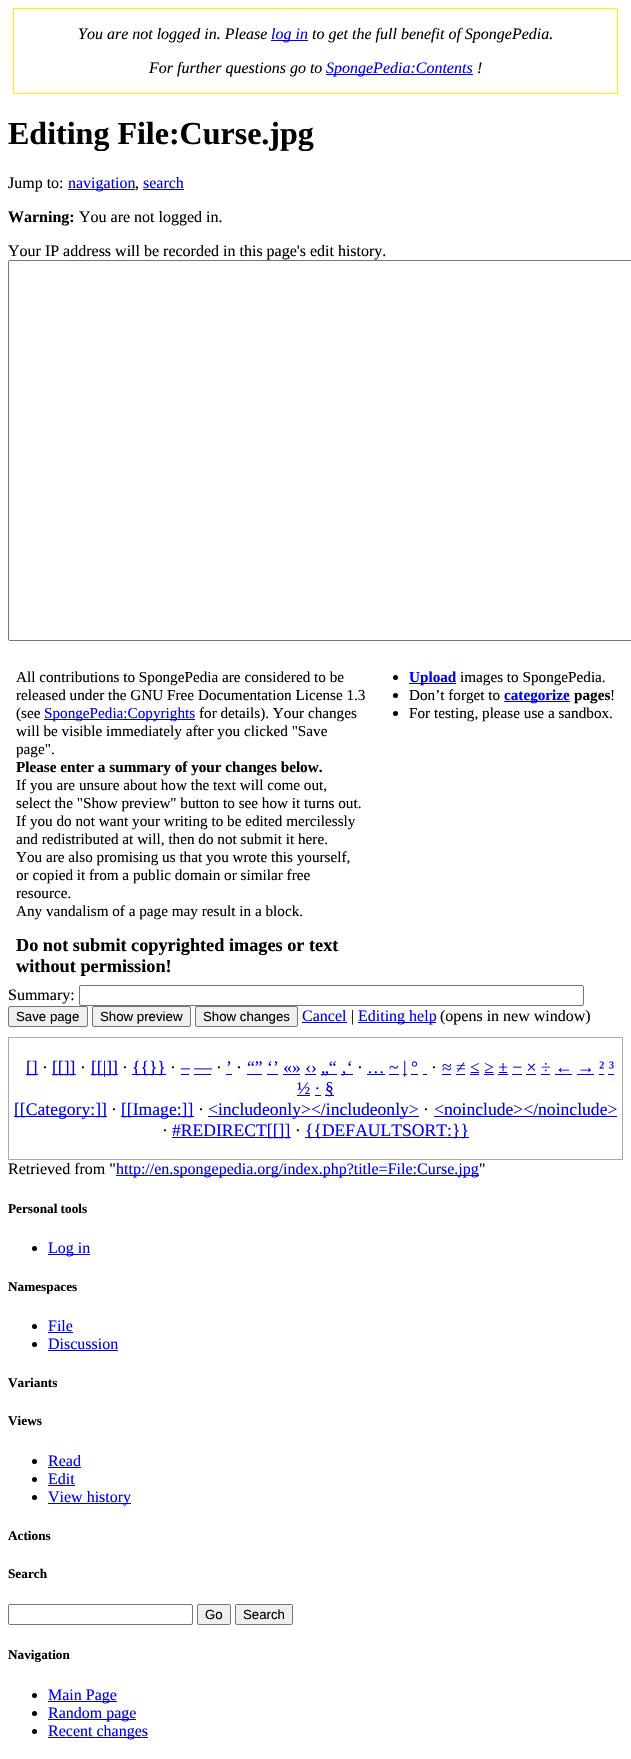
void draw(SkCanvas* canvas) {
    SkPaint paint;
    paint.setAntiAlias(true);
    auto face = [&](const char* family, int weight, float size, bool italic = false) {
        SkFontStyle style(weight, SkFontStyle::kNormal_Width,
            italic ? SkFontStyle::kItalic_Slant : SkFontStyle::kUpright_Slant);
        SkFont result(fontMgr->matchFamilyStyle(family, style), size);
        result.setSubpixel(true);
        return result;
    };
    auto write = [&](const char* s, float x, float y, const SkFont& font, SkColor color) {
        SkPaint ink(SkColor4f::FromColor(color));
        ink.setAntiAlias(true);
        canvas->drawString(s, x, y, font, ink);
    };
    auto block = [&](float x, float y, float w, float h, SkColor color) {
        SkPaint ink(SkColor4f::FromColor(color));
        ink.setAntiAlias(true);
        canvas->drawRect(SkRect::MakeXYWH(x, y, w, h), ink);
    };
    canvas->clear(SK_ColorWHITE);
    paint.setStyle(SkPaint::kStroke_Style);
    paint.setStrokeWidth(1);
    paint.setColor(SkColorSetRGB(255, 240, 0));
    canvas->drawRect(SkRect::MakeXYWH(13.5f, 8.5f, 604, 85), paint);
    auto kFont1 = face("Liberation Serif", 400, 16, true);
    write("You are not logged in. Please", 78, 39, kFont1, SK_ColorBLACK);
    block(271, 40, 37, 1, SkColorSetRGB(0, 0, 238));
    write("log in", 271, 39, kFont1, SkColorSetRGB(0, 0, 238));
    write("to get the full benefit of SpongePedia.", 312, 39, kFont1, SK_ColorBLACK);
    write("For further questions go to", 149, 73, kFont1, SK_ColorBLACK);
    block(326, 74, 147, 1, SkColorSetRGB(0, 0, 238));
    write("SpongePedia:Contents", 326, 73, kFont1, SkColorSetRGB(0, 0, 238));
    write("!", 477, 73, kFont1, SK_ColorBLACK);
    auto kFont2 = face("Liberation Serif", 700, 32);
    write("Editing File:Curse.jpg", 8, 144, kFont2, SK_ColorBLACK);
    auto kFont3 = face("Liberation Serif", 400, 16);
    write("Jump to:", 8, 188, kFont3, SK_ColorBLACK);
    block(68, 189, 67, 1, SkColorSetRGB(0, 0, 238));
    write("navigation", 68, 188, kFont3, SkColorSetRGB(0, 0, 238));
    write(",", 135, 188, kFont3, SK_ColorBLACK);
    write("search", 143, 188, kFont3, SkColorSetRGB(0, 0, 238));
    block(143, 189, 41, 1, SkColorSetRGB(0, 0, 238));
    auto kFont4 = face("Liberation Serif", 700, 16);
    write("Warning:", 8, 222, kFont4, SK_ColorBLACK);
    write("You are not logged in.", 79, 222, kFont3, SK_ColorBLACK);
    write("Your IP address will be recorded in this page's edit history.", 8, 256, kFont3, SK_ColorBLACK);
    paint.setColor(SkColorSetRGB(118, 118, 118));
    canvas->drawRoundRect(SkRect::MakeXYWH(8.5f, 260.5f, 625, 380), 1.5f, 1.5f, paint);
    auto kFont5 = face("Liberation Serif", 400, 15.2f);
    write("All contributions to SpongePedia are considered to be", 16, 682, kFont5, SK_ColorBLACK);
    write("released under the GNU Free Documentation License 1.3", 16, 700, kFont5, SK_ColorBLACK);
    write("(see", 16, 718, kFont5, SK_ColorBLACK);
    block(44, 719, 151, 1, SkColorSetRGB(0, 0, 238));
    write("SpongePedia:Copyrights", 44, 718, kFont5, SkColorSetRGB(0, 0, 238));
    write("for details). Your changes", 199, 718, kFont5, SK_ColorBLACK);
    write("will be visible immediately after you clicked \"Save", 16, 736, kFont5, SK_ColorBLACK);
    write("page\".", 16, 754, kFont5, SK_ColorBLACK);
    auto kFont6 = face("Liberation Serif", 700, 15.2f);
    write("Please enter a summary of your changes below.", 16, 772, kFont6, SK_ColorBLACK);
    write("If you are unsure about how the text will come out,", 16, 790, kFont5, SK_ColorBLACK);
    write("select the \"Show preview\" button to see how it turns out.", 16, 808, kFont5, SK_ColorBLACK);
    write("If you do not want your writing to be edited mercilessly", 16, 826, kFont5, SK_ColorBLACK);
    write("and redistributed at will, then do not submit it here.", 16, 844, kFont5, SK_ColorBLACK);
    write("You are also promising us that you wrote this yourself,", 16, 862, kFont5, SK_ColorBLACK);
    write("or copied it from a public domain or similar free", 16, 880, kFont5, SK_ColorBLACK);
    write("resource.", 16, 898, kFont5, SK_ColorBLACK);
    write("Any vandalism of a page may result in a block.", 16, 916, kFont5, SK_ColorBLACK);
    auto kFont7 = face("Liberation Serif", 700, 18.25f);
    write("Do not submit copyrighted images or text", 16, 951, kFont7, SK_ColorBLACK);
    write("without permission!", 16, 972, kFont7, SK_ColorBLACK);
    paint.setStyle(SkPaint::kFill_Style);
    paint.setColor(SK_ColorBLACK);
    canvas->drawCircle(395.5f, 677.5f, 2.5f, paint);
    block(409, 683, 47, 1, SkColorSetRGB(0, 0, 238));
    write("Upload", 409, 682, kFont6, SkColorSetRGB(0, 0, 238));
    write("images to SpongePedia.", 460, 682, kFont5, SK_ColorBLACK);
    canvas->drawCircle(395.5f, 695.5f, 2.5f, paint);
    write("Don’t forget to", 409, 700, kFont5, SK_ColorBLACK);
    block(504, 701, 66, 1, SkColorSetRGB(0, 0, 238));
    write("categorize", 504, 700, kFont6, SkColorSetRGB(0, 0, 238));
    write("pages", 574, 700, kFont6, SK_ColorBLACK);
    write("!", 610, 700, kFont5, SK_ColorBLACK);
    canvas->drawCircle(395.5f, 713.5f, 2.5f, paint);
    write("For testing, please use a sandbox.", 409, 718, kFont5, SK_ColorBLACK);
    write("Summary:", 8, 1000, kFont3, SK_ColorBLACK);
    paint.setStyle(SkPaint::kStroke_Style);
    paint.setColor(SkColorSetRGB(118, 118, 118));
    canvas->drawRoundRect(SkRect::MakeXYWH(79.5f, 985.5f, 504, 20), 1.5f, 1.5f, paint);
    paint.setStyle(SkPaint::kFill_Style);
    paint.setColor(SkColorSetRGB(239, 239, 239));
    canvas->drawRoundRect(SkRect::MakeXYWH(8.5f, 1006.5f, 79, 20), 1.5f, 1.5f, paint);
    paint.setStyle(SkPaint::kStroke_Style);
    paint.setColor(SkColorSetRGB(118, 118, 118));
    canvas->drawRoundRect(SkRect::MakeXYWH(8.5f, 1006.5f, 79, 20), 1.5f, 1.5f, paint);
    auto kFont8 = face("Liberation Sans", 400, 13.25f);
    write("Save page", 16, 1021, kFont8, SK_ColorBLACK);
    paint.setStyle(SkPaint::kFill_Style);
    paint.setColor(SkColorSetRGB(239, 239, 239));
    canvas->drawRoundRect(SkRect::MakeXYWH(92.5f, 1006.5f, 98, 20), 1.5f, 1.5f, paint);
    paint.setStyle(SkPaint::kStroke_Style);
    paint.setColor(SkColorSetRGB(118, 118, 118));
    canvas->drawRoundRect(SkRect::MakeXYWH(92.5f, 1006.5f, 98, 20), 1.5f, 1.5f, paint);
    write("Show preview", 100, 1021, kFont8, SK_ColorBLACK);
    paint.setStyle(SkPaint::kFill_Style);
    paint.setColor(SkColorSetRGB(239, 239, 239));
    canvas->drawRoundRect(SkRect::MakeXYWH(195.5f, 1006.5f, 102, 20), 1.5f, 1.5f, paint);
    paint.setStyle(SkPaint::kStroke_Style);
    paint.setColor(SkColorSetRGB(118, 118, 118));
    canvas->drawRoundRect(SkRect::MakeXYWH(195.5f, 1006.5f, 102, 20), 1.5f, 1.5f, paint);
    write("Show changes", 203, 1021, kFont8, SK_ColorBLACK);
    write("Cancel", 302, 1021, kFont3, SkColorSetRGB(0, 0, 238));
    block(302, 1022, 45, 1, SkColorSetRGB(0, 0, 238));
    write("|", 351, 1021, kFont3, SK_ColorBLACK);
    block(358, 1022, 78, 1, SkColorSetRGB(0, 0, 238));
    write("Editing help", 358, 1021, kFont3, SkColorSetRGB(0, 0, 238));
    write("(opens in new window)", 440, 1021, kFont3, SK_ColorBLACK);
    paint.setColor(SkColorSetRGB(170, 170, 170));
    canvas->drawRect(SkRect::MakeXYWH(8.5f, 1037.5f, 614, 122), paint);
    block(26, 1074, 12, 1, SkColorSetRGB(0, 0, 238));
    auto kFont9 = face("Liberation Serif", 400, 17.6f);
    write("[]", 26, 1073, kFont9, SkColorSetRGB(0, 0, 238));
    write("·", 42, 1073, kFont9, SK_ColorBLACK);
    block(52, 1074, 24, 1, SkColorSetRGB(0, 0, 238));
    write("[[]]", 52, 1073, kFont9, SkColorSetRGB(0, 0, 238));
    write("·", 80, 1073, kFont9, SK_ColorBLACK);
    block(91, 1074, 27, 1, SkColorSetRGB(0, 0, 238));
    write("[[|]]", 91, 1073, kFont9, SkColorSetRGB(0, 0, 238));
    write("·", 122, 1073, kFont9, SK_ColorBLACK);
    block(132, 1074, 34, 1, SkColorSetRGB(0, 0, 238));
    write("{{}}", 132, 1073, kFont9, SkColorSetRGB(0, 0, 238));
    write("·", 170, 1073, kFont9, SK_ColorBLACK);
    write("– —", 181, 1073, kFont9, SkColorSetRGB(0, 0, 238));
    block(181, 1074, 8, 1, SkColorSetRGB(0, 0, 238));
    write("·", 216, 1073, kFont9, SK_ColorBLACK);
    write("’", 226, 1073, kFont9, SkColorSetRGB(0, 0, 238));
    block(226, 1074, 6, 1, SkColorSetRGB(0, 0, 238));
    write("·", 236, 1073, kFont9, SK_ColorBLACK);
    write("“” ‘’ «» ‹›", 247, 1073, kFont9, SkColorSetRGB(0, 0, 238));
    block(247, 1074, 15, 1, SkColorSetRGB(0, 0, 238));
    block(321, 1074, 16, 1, SkColorSetRGB(0, 0, 238));
    write("„“", 321, 1073, kFont9, SkColorSetRGB(0, 0, 238));
    block(341, 1074, 12, 1, SkColorSetRGB(0, 0, 238));
    write("‚‘", 341, 1073, kFont9, SkColorSetRGB(0, 0, 238));
    write("·", 357, 1073, kFont9, SK_ColorBLACK);
    write("… ~", 367, 1073, kFont9, SkColorSetRGB(0, 0, 238));
    block(367, 1074, 18, 1, SkColorSetRGB(0, 0, 238));
    block(403, 1074, 4, 1, SkColorSetRGB(0, 0, 238));
    write("| °", 403, 1073, kFont9, SkColorSetRGB(0, 0, 238));
    write("·", 431, 1073, kFont9, SK_ColorBLACK);
    write("≈ ≠ ≤ ≥ ± − × ÷ ← → ² ³", 442, 1073, kFont9, SkColorSetRGB(0, 0, 238));
    block(442, 1074, 9, 1, SkColorSetRGB(0, 0, 238));
    block(194, 1074, 17, 1, SkColorSetRGB(0, 0, 238));
    block(267, 1074, 11, 1, SkColorSetRGB(0, 0, 238));
    block(283, 1074, 17, 1, SkColorSetRGB(0, 0, 238));
    block(305, 1074, 11, 1, SkColorSetRGB(0, 0, 238));
    block(389, 1074, 10, 1, SkColorSetRGB(0, 0, 238));
    block(411, 1074, 7, 1, SkColorSetRGB(0, 0, 238));
    block(423, 1074, 4, 1, SkColorSetRGB(0, 0, 238));
    block(456, 1074, 9, 1, SkColorSetRGB(0, 0, 238));
    block(470, 1074, 9, 1, SkColorSetRGB(0, 0, 238));
    block(484, 1074, 10, 1, SkColorSetRGB(0, 0, 238));
    block(498, 1074, 10, 1, SkColorSetRGB(0, 0, 238));
    block(512, 1074, 10, 1, SkColorSetRGB(0, 0, 238));
    block(526, 1074, 10, 1, SkColorSetRGB(0, 0, 238));
    block(541, 1074, 9, 1, SkColorSetRGB(0, 0, 238));
    block(555, 1074, 17, 1, SkColorSetRGB(0, 0, 238));
    block(577, 1074, 17, 1, SkColorSetRGB(0, 0, 238));
    block(599, 1074, 5, 1, SkColorSetRGB(0, 0, 238));
    block(608, 1074, 6, 1, SkColorSetRGB(0, 0, 238));
    write("½ ·", 297, 1094, kFont9, SkColorSetRGB(0, 0, 238));
    block(297, 1095, 13, 1, SkColorSetRGB(0, 0, 238));
    block(325, 1095, 9, 1, SkColorSetRGB(0, 0, 238));
    write("§", 325, 1094, kFont9, SkColorSetRGB(0, 0, 238));
    block(315, 1095, 6, 1, SkColorSetRGB(0, 0, 238));
    block(14, 1116, 93, 1, SkColorSetRGB(0, 0, 238));
    write("[[Category:]]", 14, 1115, kFont9, SkColorSetRGB(0, 0, 238));
    write("·", 111, 1115, kFont9, SK_ColorBLACK);
    block(121, 1116, 73, 1, SkColorSetRGB(0, 0, 238));
    write("[[Image:]]", 121, 1115, kFont9, SkColorSetRGB(0, 0, 238));
    write("·", 198, 1115, kFont9, SK_ColorBLACK);
    block(208, 1116, 211, 1, SkColorSetRGB(0, 0, 238));
    write("<includeonly></includeonly>", 208, 1115, kFont9, SkColorSetRGB(0, 0, 238));
    write("·", 423, 1115, kFont9, SK_ColorBLACK);
    write("<noinclude></noinclude>", 434, 1115, kFont9, SkColorSetRGB(0, 0, 238));
    block(434, 1116, 183, 1, SkColorSetRGB(0, 0, 238));
    write("·", 162, 1136, kFont9, SK_ColorBLACK);
    block(172, 1137, 119, 1, SkColorSetRGB(0, 0, 238));
    write("#REDIRECT[[]]", 172, 1136, kFont9, SkColorSetRGB(0, 0, 238));
    write("·", 295, 1136, kFont9, SK_ColorBLACK);
    block(305, 1137, 164, 1, SkColorSetRGB(0, 0, 238));
    write("{{DEFAULTSORT:}}", 305, 1136, kFont9, SkColorSetRGB(0, 0, 238));
    write("Retrieved from \"", 8, 1174, kFont3, SK_ColorBLACK);
    block(116, 1175, 363, 1, SkColorSetRGB(0, 0, 238));
    write("http://en.spongepedia.org/index.php?title=File:Curse.jpg", 116, 1174, kFont3, SkColorSetRGB(0, 0, 238));
    write("\"", 479, 1174, kFont3, SK_ColorBLACK);
    auto kFont10 = face("Liberation Serif", 700, 13.25f);
    write("Personal tools", 8, 1213, kFont10, SK_ColorBLACK);
    paint.setStyle(SkPaint::kFill_Style);
    paint.setColor(SK_ColorBLACK);
    canvas->drawCircle(34.5f, 1248.5f, 2.5f, paint);
    block(48, 1254, 42, 1, SkColorSetRGB(0, 0, 238));
    write("Log in", 48, 1253, kFont3, SkColorSetRGB(0, 0, 238));
    write("Namespaces", 8, 1291, kFont10, SK_ColorBLACK);
    canvas->drawCircle(34.5f, 1326.5f, 2.5f, paint);
    write("File", 48, 1331, kFont3, SkColorSetRGB(0, 0, 238));
    block(48, 1332, 25, 1, SkColorSetRGB(0, 0, 238));
    canvas->drawCircle(34.5f, 1344.5f, 2.5f, paint);
    write("Discussion", 48, 1349, kFont3, SkColorSetRGB(0, 0, 238));
    block(48, 1350, 70, 1, SkColorSetRGB(0, 0, 238));
    write("Variants", 8, 1387, kFont10, SK_ColorBLACK);
    write("Views", 8, 1425, kFont10, SK_ColorBLACK);
    canvas->drawCircle(34.5f, 1461.5f, 2.5f, paint);
    write("Read", 48, 1466, kFont3, SkColorSetRGB(0, 0, 238));
    block(48, 1467, 33, 1, SkColorSetRGB(0, 0, 238));
    canvas->drawCircle(34.5f, 1479.5f, 2.5f, paint);
    write("Edit", 48, 1484, kFont3, SkColorSetRGB(0, 0, 238));
    block(48, 1485, 27, 1, SkColorSetRGB(0, 0, 238));
    canvas->drawCircle(34.5f, 1497.5f, 2.5f, paint);
    block(48, 1503, 83, 1, SkColorSetRGB(0, 0, 238));
    write("View history", 48, 1502, kFont3, SkColorSetRGB(0, 0, 238));
    write("Actions", 8, 1540, kFont10, SK_ColorBLACK);
    write("Search", 8, 1578, kFont10, SK_ColorBLACK);
    paint.setStyle(SkPaint::kStroke_Style);
    paint.setColor(SkColorSetRGB(118, 118, 118));
    canvas->drawRoundRect(SkRect::MakeXYWH(8.5f, 1604.5f, 184, 20), 1.5f, 1.5f, paint);
    paint.setStyle(SkPaint::kFill_Style);
    paint.setColor(SkColorSetRGB(239, 239, 239));
    canvas->drawRoundRect(SkRect::MakeXYWH(197.5f, 1604.5f, 33, 20), 1.5f, 1.5f, paint);
    paint.setStyle(SkPaint::kStroke_Style);
    paint.setColor(SkColorSetRGB(118, 118, 118));
    canvas->drawRoundRect(SkRect::MakeXYWH(197.5f, 1604.5f, 33, 20), 1.5f, 1.5f, paint);
    write("Go", 205, 1619, kFont8, SK_ColorBLACK);
    paint.setStyle(SkPaint::kFill_Style);
    paint.setColor(SkColorSetRGB(239, 239, 239));
    canvas->drawRoundRect(SkRect::MakeXYWH(235.5f, 1604.5f, 57, 20), 1.5f, 1.5f, paint);
    paint.setStyle(SkPaint::kStroke_Style);
    paint.setColor(SkColorSetRGB(118, 118, 118));
    canvas->drawRoundRect(SkRect::MakeXYWH(235.5f, 1604.5f, 57, 20), 1.5f, 1.5f, paint);
    write("Search", 243, 1619, kFont8, SK_ColorBLACK);
    write("Navigation", 8, 1659, kFont10, SK_ColorBLACK);
    paint.setStyle(SkPaint::kFill_Style);
    paint.setColor(SK_ColorBLACK);
    canvas->drawCircle(34.5f, 1695.5f, 2.5f, paint);
    block(48, 1701, 69, 1, SkColorSetRGB(0, 0, 238));
    write("Main Page", 48, 1700, kFont3, SkColorSetRGB(0, 0, 238));
    canvas->drawCircle(34.5f, 1713.5f, 2.5f, paint);
    block(48, 1719, 88, 1, SkColorSetRGB(0, 0, 238));
    write("Random page", 48, 1718, kFont3, SkColorSetRGB(0, 0, 238));
    canvas->drawCircle(34.5f, 1731.5f, 2.5f, paint);
    block(48, 1737, 100, 1, SkColorSetRGB(0, 0, 238));
    write("Recent changes", 48, 1736, kFont3, SkColorSetRGB(0, 0, 238));
}
